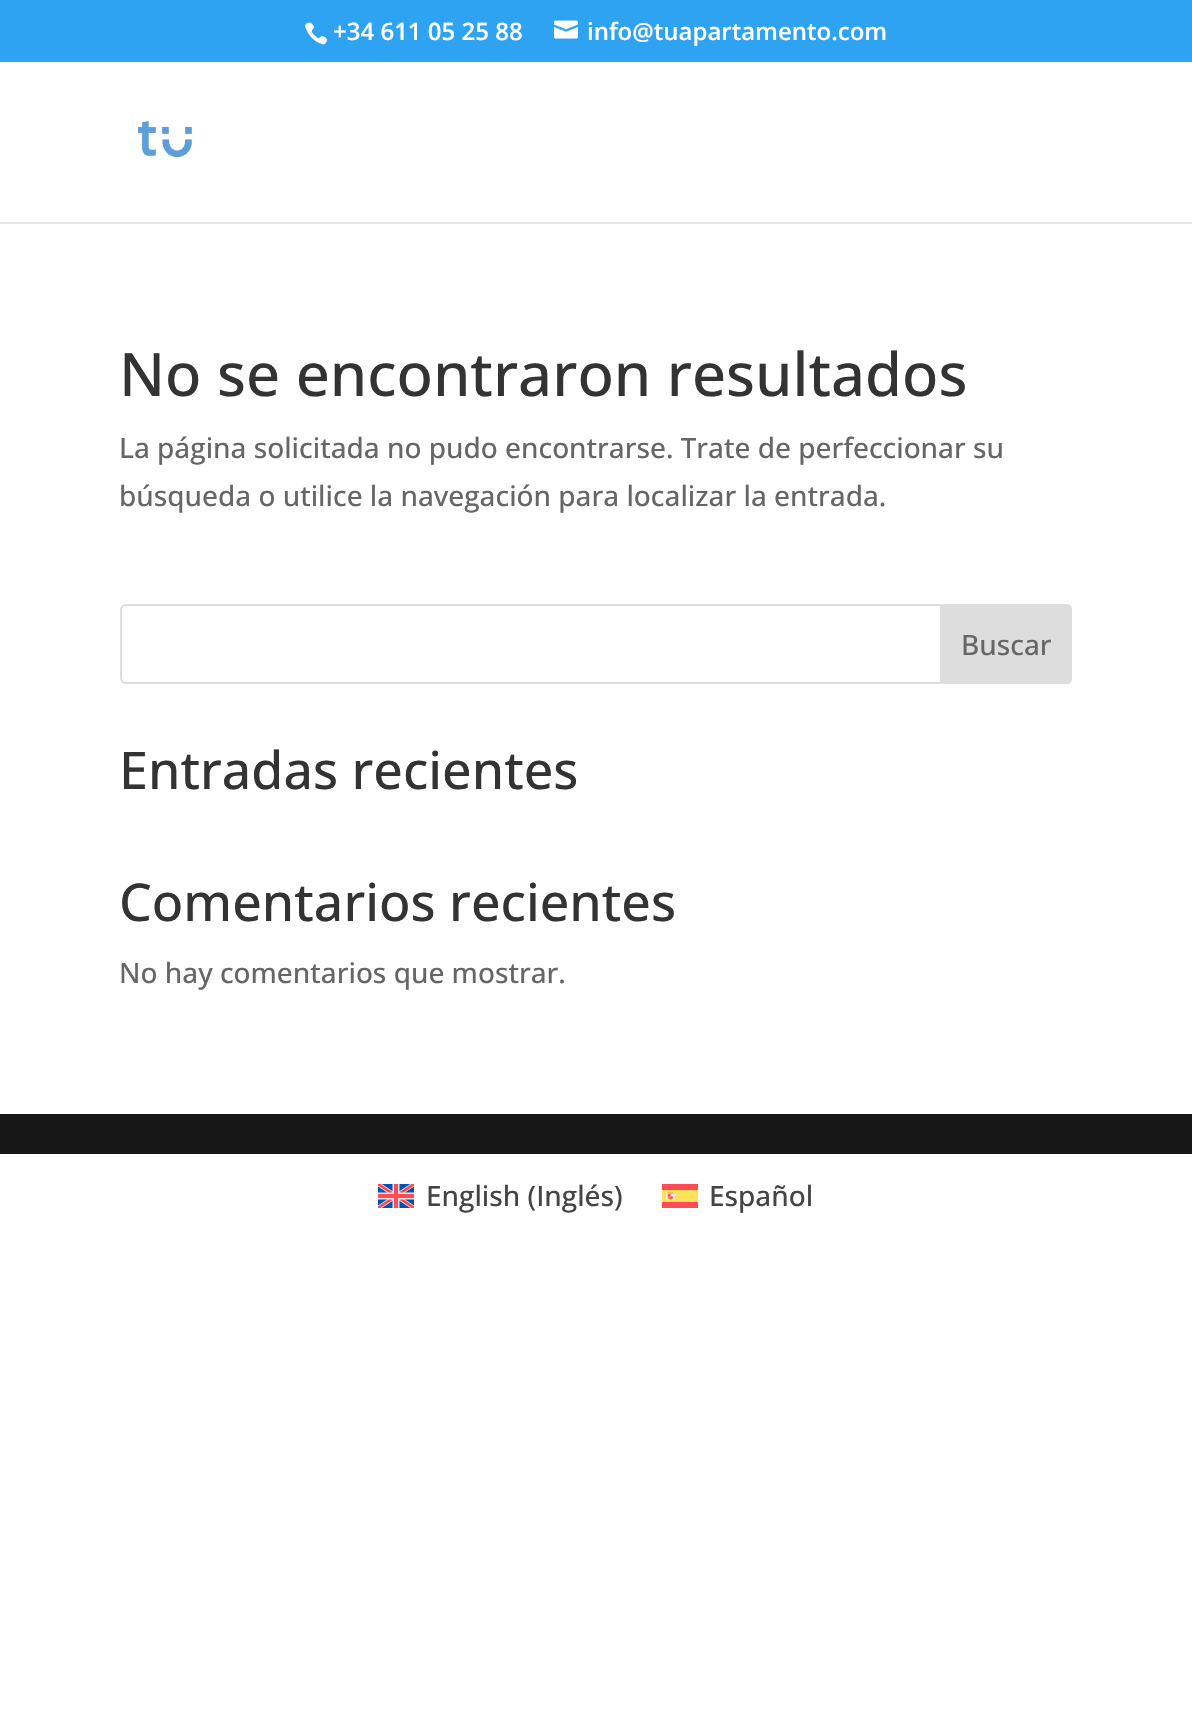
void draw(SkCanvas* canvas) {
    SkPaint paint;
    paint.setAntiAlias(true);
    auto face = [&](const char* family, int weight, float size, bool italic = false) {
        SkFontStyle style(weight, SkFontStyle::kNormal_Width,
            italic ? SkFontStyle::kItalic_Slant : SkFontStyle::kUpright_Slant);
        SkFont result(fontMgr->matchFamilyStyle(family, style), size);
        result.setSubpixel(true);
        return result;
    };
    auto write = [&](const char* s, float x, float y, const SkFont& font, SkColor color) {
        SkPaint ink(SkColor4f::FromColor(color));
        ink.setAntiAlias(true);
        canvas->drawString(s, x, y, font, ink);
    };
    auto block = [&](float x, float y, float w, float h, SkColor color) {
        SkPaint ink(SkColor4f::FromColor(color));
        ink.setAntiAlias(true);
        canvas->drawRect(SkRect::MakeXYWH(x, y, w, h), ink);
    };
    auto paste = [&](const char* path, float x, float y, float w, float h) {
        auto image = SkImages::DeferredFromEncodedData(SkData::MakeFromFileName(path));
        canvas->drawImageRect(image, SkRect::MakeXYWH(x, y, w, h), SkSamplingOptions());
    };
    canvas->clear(SK_ColorWHITE);
    block(0, 0, 1192, 62, SkColorSetRGB(46, 163, 242));
    paste("pic1.png", 305, 22, 22, 23);
    auto kFont1 = face("Open Sans", 600, 24);
    write("+34 611 05 25 88", 333, 40, kFont1, SK_ColorWHITE);
    paste("pic2.png", 554, 20, 24, 19);
    write("info@tuapartamento.com", 587, 40, kFont1, SK_ColorWHITE);
    block(0, 222, 1192, 2, SkColorSetRGB(230, 230, 230));
    paste("pic3.png", 138, 121, 54, 37);
    auto kFont2 = face("Open Sans", 500, 60);
    write("No se encontraron resultados", 119, 396, kFont2, SkColorSetRGB(51, 51, 51));
    auto kFont3 = face("Open Sans", 500, 28);
    write("La página solicitada no pudo encontrarse. Trate de perfeccionar su", 119, 458, kFont3, SkColorSetRGB(102, 102, 102));
    write("búsqueda o utilice la navegación para localizar la entrada.", 119, 506, kFont3, SkColorSetRGB(102, 102, 102));
    paint.setStyle(SkPaint::kStroke_Style);
    paint.setStrokeWidth(2);
    paint.setColor(SkColorSetRGB(221, 221, 221));
    canvas->drawRoundRect(SkRect::MakeXYWH(121, 605, 950, 78), 5, 5, paint);
    paint.setStyle(SkPaint::kFill_Style);
    canvas->drawPath(SkPathBuilder().moveTo(941, 605).lineTo(1066, 605).cubicTo(1069, 605, 1071, 607, 1071, 610).lineTo(1071, 678).cubicTo(1071, 681, 1069, 683, 1066, 683).lineTo(941, 683).close().detach(), paint);
    paint.setStyle(SkPaint::kStroke_Style);
    canvas->drawPath(SkPathBuilder().moveTo(941, 605).lineTo(1066, 605).cubicTo(1069, 605, 1071, 607, 1071, 610).lineTo(1071, 678).cubicTo(1071, 681, 1069, 683, 1066, 683).lineTo(941, 683).close().detach(), paint);
    write("Buscar", 961, 655, kFont3, SkColorSetRGB(102, 102, 102));
    auto kFont4 = face("Open Sans", 500, 52);
    write("Entradas recientes", 119, 789, kFont4, SkColorSetRGB(51, 51, 51));
    write("Comentarios recientes", 119, 921, kFont4, SkColorSetRGB(51, 51, 51));
    write("No hay comentarios que mostrar.", 119, 983, kFont3, SkColorSetRGB(102, 102, 102));
    block(0, 1114, 1192, 40, SkColorSetRGB(23, 23, 23));
    paste("pic4.png", 378, 1184, 36, 24);
    write("English (Inglés)", 426, 1206, kFont3, SkColorSetRGB(68, 68, 68));
    paste("pic5.png", 662, 1184, 36, 24);
    write("Español", 709, 1206, kFont3, SkColorSetRGB(68, 68, 68));
}
